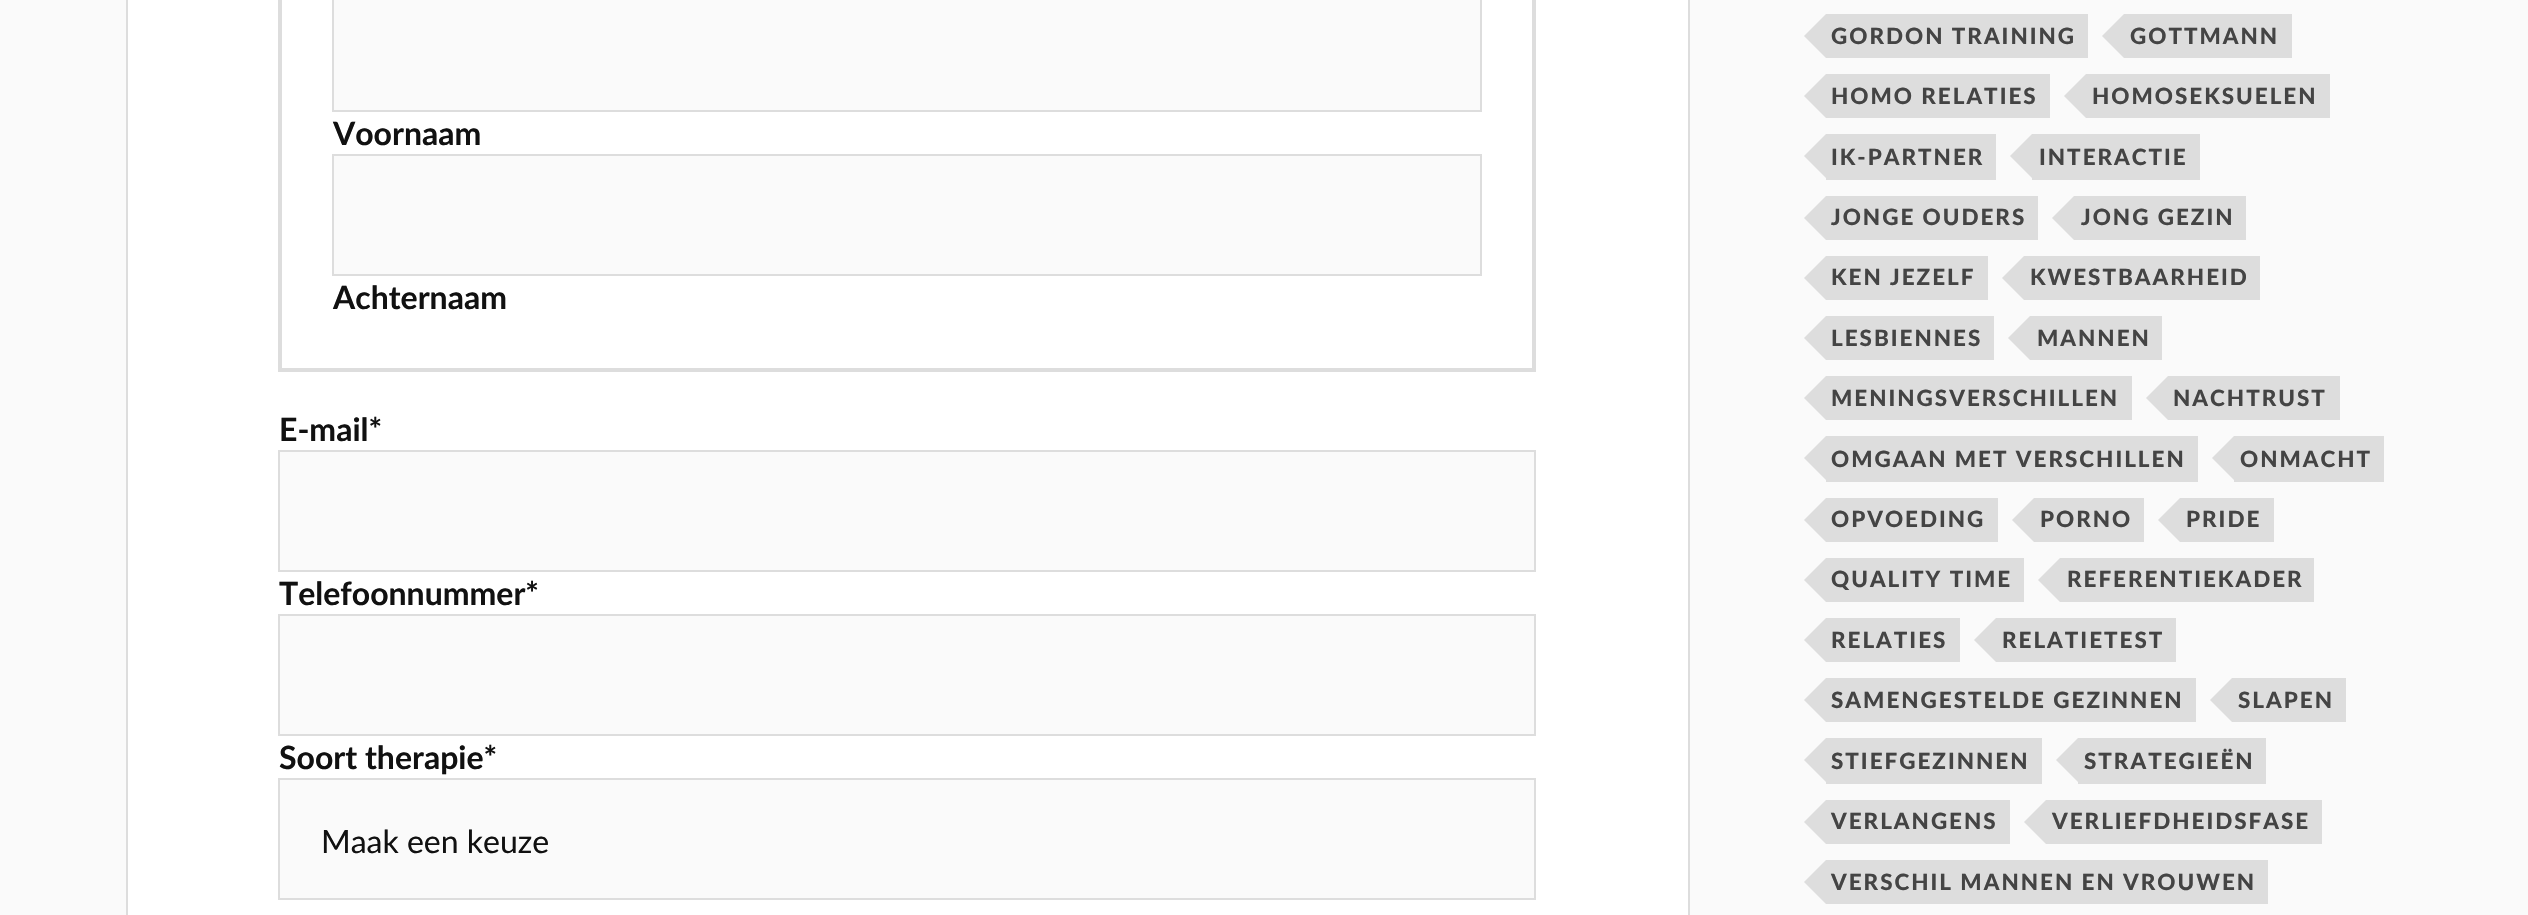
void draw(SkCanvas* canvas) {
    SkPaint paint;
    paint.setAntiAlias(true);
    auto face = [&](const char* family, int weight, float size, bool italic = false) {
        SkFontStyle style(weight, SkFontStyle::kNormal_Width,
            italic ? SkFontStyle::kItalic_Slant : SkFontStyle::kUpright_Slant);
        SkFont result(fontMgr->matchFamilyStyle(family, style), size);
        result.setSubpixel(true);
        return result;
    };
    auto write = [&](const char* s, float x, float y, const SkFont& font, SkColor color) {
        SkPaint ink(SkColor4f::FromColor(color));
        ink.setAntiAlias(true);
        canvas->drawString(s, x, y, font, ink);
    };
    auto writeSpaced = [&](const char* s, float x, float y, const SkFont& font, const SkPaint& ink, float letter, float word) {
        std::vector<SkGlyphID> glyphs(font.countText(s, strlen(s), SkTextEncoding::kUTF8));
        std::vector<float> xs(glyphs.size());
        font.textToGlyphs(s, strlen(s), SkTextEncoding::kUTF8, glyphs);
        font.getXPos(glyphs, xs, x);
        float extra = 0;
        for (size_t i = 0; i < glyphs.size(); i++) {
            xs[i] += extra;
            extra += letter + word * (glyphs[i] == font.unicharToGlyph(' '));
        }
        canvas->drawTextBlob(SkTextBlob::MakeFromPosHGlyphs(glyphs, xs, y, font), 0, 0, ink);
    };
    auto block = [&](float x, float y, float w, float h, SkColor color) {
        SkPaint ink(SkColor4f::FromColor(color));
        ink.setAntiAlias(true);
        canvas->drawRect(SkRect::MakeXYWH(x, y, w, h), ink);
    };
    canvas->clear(SkColorSetRGB(250, 250, 250));
    paint.setColor(SK_ColorWHITE);
    canvas->drawRect(SkRect::MakeXYWH(127, -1, 1562, 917), paint);
    paint.setStyle(SkPaint::kStroke_Style);
    paint.setStrokeWidth(2);
    paint.setColor(SkColorSetRGB(221, 221, 221));
    canvas->drawRect(SkRect::MakeXYWH(127, -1, 1562, 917), paint);
    paint.setStrokeWidth(4);
    canvas->drawRect(SkRect::MakeXYWH(280, -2, 1254, 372), paint);
    paint.setStyle(SkPaint::kFill_Style);
    paint.setColor(SkColorSetRGB(250, 250, 250));
    canvas->drawRect(SkRect::MakeXYWH(333, -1, 1148, 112), paint);
    paint.setStyle(SkPaint::kStroke_Style);
    paint.setStrokeWidth(2);
    paint.setColor(SkColorSetRGB(221, 221, 221));
    canvas->drawRect(SkRect::MakeXYWH(333, -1, 1148, 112), paint);
    auto kFont1 = face("Lato", 700, 32);
    write("Voornaam", 333, 145, kFont1, SkColorSetRGB(17, 17, 17));
    paint.setStyle(SkPaint::kFill_Style);
    paint.setColor(SkColorSetRGB(250, 250, 250));
    canvas->drawRect(SkRect::MakeXYWH(333, 155, 1148, 120), paint);
    paint.setStyle(SkPaint::kStroke_Style);
    paint.setColor(SkColorSetRGB(221, 221, 221));
    canvas->drawRect(SkRect::MakeXYWH(333, 155, 1148, 120), paint);
    write("Achternaam", 333, 309, kFont1, SkColorSetRGB(17, 17, 17));
    write("E-mail*", 279, 441, kFont1, SkColorSetRGB(17, 17, 17));
    paint.setStyle(SkPaint::kFill_Style);
    paint.setColor(SkColorSetRGB(250, 250, 250));
    canvas->drawRect(SkRect::MakeXYWH(279, 451, 1256, 120), paint);
    paint.setStyle(SkPaint::kStroke_Style);
    paint.setColor(SkColorSetRGB(221, 221, 221));
    canvas->drawRect(SkRect::MakeXYWH(279, 451, 1256, 120), paint);
    write("Telefoonnummer*", 279, 605, kFont1, SkColorSetRGB(17, 17, 17));
    paint.setStyle(SkPaint::kFill_Style);
    paint.setColor(SkColorSetRGB(250, 250, 250));
    canvas->drawRect(SkRect::MakeXYWH(279, 615, 1256, 120), paint);
    paint.setStyle(SkPaint::kStroke_Style);
    paint.setColor(SkColorSetRGB(221, 221, 221));
    canvas->drawRect(SkRect::MakeXYWH(279, 615, 1256, 120), paint);
    write("Soort therapie*", 279, 769, kFont1, SkColorSetRGB(17, 17, 17));
    paint.setStyle(SkPaint::kFill_Style);
    paint.setColor(SkColorSetRGB(250, 250, 250));
    canvas->drawRect(SkRect::MakeXYWH(279, 779, 1256, 120), paint);
    paint.setStyle(SkPaint::kStroke_Style);
    paint.setColor(SkColorSetRGB(221, 221, 221));
    canvas->drawRect(SkRect::MakeXYWH(279, 779, 1256, 120), paint);
    auto kFont2 = face("Lato", 400, 32);
    write("Maak een keuze", 321, 853, kFont2, SkColorSetRGB(17, 17, 17));
    block(1826, 14, 262, 44, SkColorSetRGB(221, 221, 221));
    paint.setStyle(SkPaint::kFill_Style);
    canvas->drawPath(SkPathBuilder().moveTo(1826, 14).lineTo(1826, 58).lineTo(1804, 36).close().detach(), paint);
    auto kFont3 = face("Lato", 900, 22.4f);
    paint.setColor(SkColorSetRGB(68, 68, 68));
    writeSpaced("GORDON TRAINING", 1831, 44, kFont3, paint, 2, 0);
    block(2124, 14, 168, 44, SkColorSetRGB(221, 221, 221));
    paint.setColor(SkColorSetRGB(221, 221, 221));
    canvas->drawPath(SkPathBuilder().moveTo(2124, 14).lineTo(2124, 58).lineTo(2102, 36).close().detach(), paint);
    paint.setColor(SkColorSetRGB(68, 68, 68));
    writeSpaced("GOTTMANN", 2130, 44, kFont3, paint, 2, 0);
    block(1826, 74, 224, 44, SkColorSetRGB(221, 221, 221));
    paint.setColor(SkColorSetRGB(221, 221, 221));
    canvas->drawPath(SkPathBuilder().moveTo(1826, 74).lineTo(1826, 118).lineTo(1804, 96).close().detach(), paint);
    paint.setColor(SkColorSetRGB(68, 68, 68));
    writeSpaced("HOMO RELATIES", 1831, 104, kFont3, paint, 2, 0);
    block(2086, 74, 244, 44, SkColorSetRGB(221, 221, 221));
    paint.setColor(SkColorSetRGB(221, 221, 221));
    canvas->drawPath(SkPathBuilder().moveTo(2086, 74).lineTo(2086, 118).lineTo(2064, 96).close().detach(), paint);
    paint.setColor(SkColorSetRGB(68, 68, 68));
    writeSpaced("HOMOSEKSUELEN", 2092, 104, kFont3, paint, 2, 0);
    block(1826, 134, 170, 46, SkColorSetRGB(221, 221, 221));
    paint.setColor(SkColorSetRGB(221, 221, 221));
    canvas->drawPath(SkPathBuilder().moveTo(1826, 134).lineTo(1826, 178).lineTo(1804, 156).close().detach(), paint);
    paint.setColor(SkColorSetRGB(68, 68, 68));
    writeSpaced("IK-PARTNER", 1831, 165, kFont3, paint, 2, 0);
    block(2032, 134, 168, 46, SkColorSetRGB(221, 221, 221));
    paint.setColor(SkColorSetRGB(221, 221, 221));
    canvas->drawPath(SkPathBuilder().moveTo(2032, 134).lineTo(2032, 178).lineTo(2010, 156).close().detach(), paint);
    paint.setColor(SkColorSetRGB(68, 68, 68));
    writeSpaced("INTERACTIE", 2039, 165, kFont3, paint, 2, 0);
    block(1826, 196, 212, 44, SkColorSetRGB(221, 221, 221));
    paint.setColor(SkColorSetRGB(221, 221, 221));
    canvas->drawPath(SkPathBuilder().moveTo(1826, 196).lineTo(1826, 240).lineTo(1804, 218).close().detach(), paint);
    paint.setColor(SkColorSetRGB(68, 68, 68));
    writeSpaced("JONGE OUDERS", 1831, 225, kFont3, paint, 2, 0);
    block(2074, 196, 172, 44, SkColorSetRGB(221, 221, 221));
    paint.setColor(SkColorSetRGB(221, 221, 221));
    canvas->drawPath(SkPathBuilder().moveTo(2074, 196).lineTo(2074, 240).lineTo(2052, 218).close().detach(), paint);
    paint.setColor(SkColorSetRGB(68, 68, 68));
    writeSpaced("JONG GEZIN", 2081, 225, kFont3, paint, 2, 0);
    block(1826, 256, 162, 44, SkColorSetRGB(221, 221, 221));
    paint.setColor(SkColorSetRGB(221, 221, 221));
    canvas->drawPath(SkPathBuilder().moveTo(1826, 256).lineTo(1826, 300).lineTo(1804, 278).close().detach(), paint);
    paint.setColor(SkColorSetRGB(68, 68, 68));
    writeSpaced("KEN JEZELF", 1831, 285, kFont3, paint, 2, 0);
    block(2024, 256, 236, 44, SkColorSetRGB(221, 221, 221));
    paint.setColor(SkColorSetRGB(221, 221, 221));
    canvas->drawPath(SkPathBuilder().moveTo(2024, 256).lineTo(2024, 300).lineTo(2002, 278).close().detach(), paint);
    paint.setColor(SkColorSetRGB(68, 68, 68));
    writeSpaced("KWESTBAARHEID", 2030, 285, kFont3, paint, 2, 0);
    block(1826, 316, 168, 44, SkColorSetRGB(221, 221, 221));
    paint.setColor(SkColorSetRGB(221, 221, 221));
    canvas->drawPath(SkPathBuilder().moveTo(1826, 316).lineTo(1826, 360).lineTo(1804, 338).close().detach(), paint);
    paint.setColor(SkColorSetRGB(68, 68, 68));
    writeSpaced("LESBIENNES", 1831, 346, kFont3, paint, 2, 0);
    block(2030, 316, 132, 44, SkColorSetRGB(221, 221, 221));
    paint.setColor(SkColorSetRGB(221, 221, 221));
    canvas->drawPath(SkPathBuilder().moveTo(2030, 316).lineTo(2030, 360).lineTo(2008, 338).close().detach(), paint);
    paint.setColor(SkColorSetRGB(68, 68, 68));
    writeSpaced("MANNEN", 2037, 346, kFont3, paint, 2, 0);
    block(1826, 376, 306, 44, SkColorSetRGB(221, 221, 221));
    paint.setColor(SkColorSetRGB(221, 221, 221));
    canvas->drawPath(SkPathBuilder().moveTo(1826, 376).lineTo(1826, 420).lineTo(1804, 398).close().detach(), paint);
    paint.setColor(SkColorSetRGB(68, 68, 68));
    writeSpaced("MENINGSVERSCHILLEN", 1831, 406, kFont3, paint, 2, 0);
    block(2168, 376, 172, 44, SkColorSetRGB(221, 221, 221));
    paint.setColor(SkColorSetRGB(221, 221, 221));
    canvas->drawPath(SkPathBuilder().moveTo(2168, 376).lineTo(2168, 420).lineTo(2146, 398).close().detach(), paint);
    paint.setColor(SkColorSetRGB(68, 68, 68));
    writeSpaced("NACHTRUST", 2173, 406, kFont3, paint, 2, 0);
    block(1826, 436, 372, 46, SkColorSetRGB(221, 221, 221));
    paint.setColor(SkColorSetRGB(221, 221, 221));
    canvas->drawPath(SkPathBuilder().moveTo(1826, 436).lineTo(1826, 480).lineTo(1804, 458).close().detach(), paint);
    paint.setColor(SkColorSetRGB(68, 68, 68));
    writeSpaced("OMGAAN MET VERSCHILLEN", 1831, 467, kFont3, paint, 2, 0);
    block(2234, 436, 150, 46, SkColorSetRGB(221, 221, 221));
    paint.setColor(SkColorSetRGB(221, 221, 221));
    canvas->drawPath(SkPathBuilder().moveTo(2234, 436).lineTo(2234, 480).lineTo(2212, 458).close().detach(), paint);
    paint.setColor(SkColorSetRGB(68, 68, 68));
    writeSpaced("ONMACHT", 2240, 467, kFont3, paint, 2, 0);
    block(1826, 498, 172, 44, SkColorSetRGB(221, 221, 221));
    paint.setColor(SkColorSetRGB(221, 221, 221));
    canvas->drawPath(SkPathBuilder().moveTo(1826, 498).lineTo(1826, 542).lineTo(1804, 520).close().detach(), paint);
    paint.setColor(SkColorSetRGB(68, 68, 68));
    writeSpaced("OPVOEDING", 1831, 527, kFont3, paint, 2, 0);
    block(2034, 498, 110, 44, SkColorSetRGB(221, 221, 221));
    paint.setColor(SkColorSetRGB(221, 221, 221));
    canvas->drawPath(SkPathBuilder().moveTo(2034, 498).lineTo(2034, 542).lineTo(2012, 520).close().detach(), paint);
    paint.setColor(SkColorSetRGB(68, 68, 68));
    writeSpaced("PORNO", 2040, 527, kFont3, paint, 2, 0);
    block(2180, 498, 94, 44, SkColorSetRGB(221, 221, 221));
    paint.setColor(SkColorSetRGB(221, 221, 221));
    canvas->drawPath(SkPathBuilder().moveTo(2180, 498).lineTo(2180, 542).lineTo(2158, 520).close().detach(), paint);
    paint.setColor(SkColorSetRGB(68, 68, 68));
    writeSpaced("PRIDE", 2186, 527, kFont3, paint, 2, 0);
    block(1826, 558, 198, 44, SkColorSetRGB(221, 221, 221));
    paint.setColor(SkColorSetRGB(221, 221, 221));
    canvas->drawPath(SkPathBuilder().moveTo(1826, 558).lineTo(1826, 602).lineTo(1804, 580).close().detach(), paint);
    paint.setColor(SkColorSetRGB(68, 68, 68));
    writeSpaced("QUALITY TIME", 1831, 587, kFont3, paint, 2, 0);
    block(2060, 558, 254, 44, SkColorSetRGB(221, 221, 221));
    paint.setColor(SkColorSetRGB(221, 221, 221));
    canvas->drawPath(SkPathBuilder().moveTo(2060, 558).lineTo(2060, 602).lineTo(2038, 580).close().detach(), paint);
    paint.setColor(SkColorSetRGB(68, 68, 68));
    writeSpaced("REFERENTIEKADER", 2067, 587, kFont3, paint, 2, 0);
    block(1826, 618, 134, 44, SkColorSetRGB(221, 221, 221));
    paint.setColor(SkColorSetRGB(221, 221, 221));
    canvas->drawPath(SkPathBuilder().moveTo(1826, 618).lineTo(1826, 662).lineTo(1804, 640).close().detach(), paint);
    paint.setColor(SkColorSetRGB(68, 68, 68));
    writeSpaced("RELATIES", 1831, 648, kFont3, paint, 2, 0);
    block(1996, 618, 180, 44, SkColorSetRGB(221, 221, 221));
    paint.setColor(SkColorSetRGB(221, 221, 221));
    canvas->drawPath(SkPathBuilder().moveTo(1996, 618).lineTo(1996, 662).lineTo(1974, 640).close().detach(), paint);
    paint.setColor(SkColorSetRGB(68, 68, 68));
    writeSpaced("RELATIETEST", 2002, 648, kFont3, paint, 2, 0);
    block(1826, 678, 370, 44, SkColorSetRGB(221, 221, 221));
    paint.setColor(SkColorSetRGB(221, 221, 221));
    canvas->drawPath(SkPathBuilder().moveTo(1826, 678).lineTo(1826, 722).lineTo(1804, 700).close().detach(), paint);
    paint.setColor(SkColorSetRGB(68, 68, 68));
    writeSpaced("SAMENGESTELDE GEZINNEN", 1831, 708, kFont3, paint, 2, 0);
    block(2232, 678, 114, 44, SkColorSetRGB(221, 221, 221));
    paint.setColor(SkColorSetRGB(221, 221, 221));
    canvas->drawPath(SkPathBuilder().moveTo(2232, 678).lineTo(2232, 722).lineTo(2210, 700).close().detach(), paint);
    paint.setColor(SkColorSetRGB(68, 68, 68));
    writeSpaced("SLAPEN", 2238, 708, kFont3, paint, 2, 0);
    block(1826, 738, 216, 46, SkColorSetRGB(221, 221, 221));
    paint.setColor(SkColorSetRGB(221, 221, 221));
    canvas->drawPath(SkPathBuilder().moveTo(1826, 738).lineTo(1826, 782).lineTo(1804, 760).close().detach(), paint);
    paint.setColor(SkColorSetRGB(68, 68, 68));
    writeSpaced("STIEFGEZINNEN", 1831, 769, kFont3, paint, 2, 0);
    block(2078, 738, 188, 46, SkColorSetRGB(221, 221, 221));
    paint.setColor(SkColorSetRGB(221, 221, 221));
    canvas->drawPath(SkPathBuilder().moveTo(2078, 738).lineTo(2078, 782).lineTo(2056, 760).close().detach(), paint);
    paint.setColor(SkColorSetRGB(68, 68, 68));
    writeSpaced("STRATEGIEËN", 2084, 769, kFont3, paint, 2, 0);
    block(1826, 800, 184, 44, SkColorSetRGB(221, 221, 221));
    paint.setColor(SkColorSetRGB(221, 221, 221));
    canvas->drawPath(SkPathBuilder().moveTo(1826, 800).lineTo(1826, 844).lineTo(1804, 822).close().detach(), paint);
    paint.setColor(SkColorSetRGB(68, 68, 68));
    writeSpaced("VERLANGENS", 1831, 829, kFont3, paint, 2, 0);
    block(2046, 800, 276, 44, SkColorSetRGB(221, 221, 221));
    paint.setColor(SkColorSetRGB(221, 221, 221));
    canvas->drawPath(SkPathBuilder().moveTo(2046, 800).lineTo(2046, 844).lineTo(2024, 822).close().detach(), paint);
    paint.setColor(SkColorSetRGB(68, 68, 68));
    writeSpaced("VERLIEFDHEIDSFASE", 2052, 829, kFont3, paint, 2, 0);
    block(1826, 860, 442, 44, SkColorSetRGB(221, 221, 221));
    paint.setColor(SkColorSetRGB(221, 221, 221));
    canvas->drawPath(SkPathBuilder().moveTo(1826, 860).lineTo(1826, 904).lineTo(1804, 882).close().detach(), paint);
    paint.setColor(SkColorSetRGB(68, 68, 68));
    writeSpaced("VERSCHIL MANNEN EN VROUWEN", 1831, 890, kFont3, paint, 2, 0);
}
